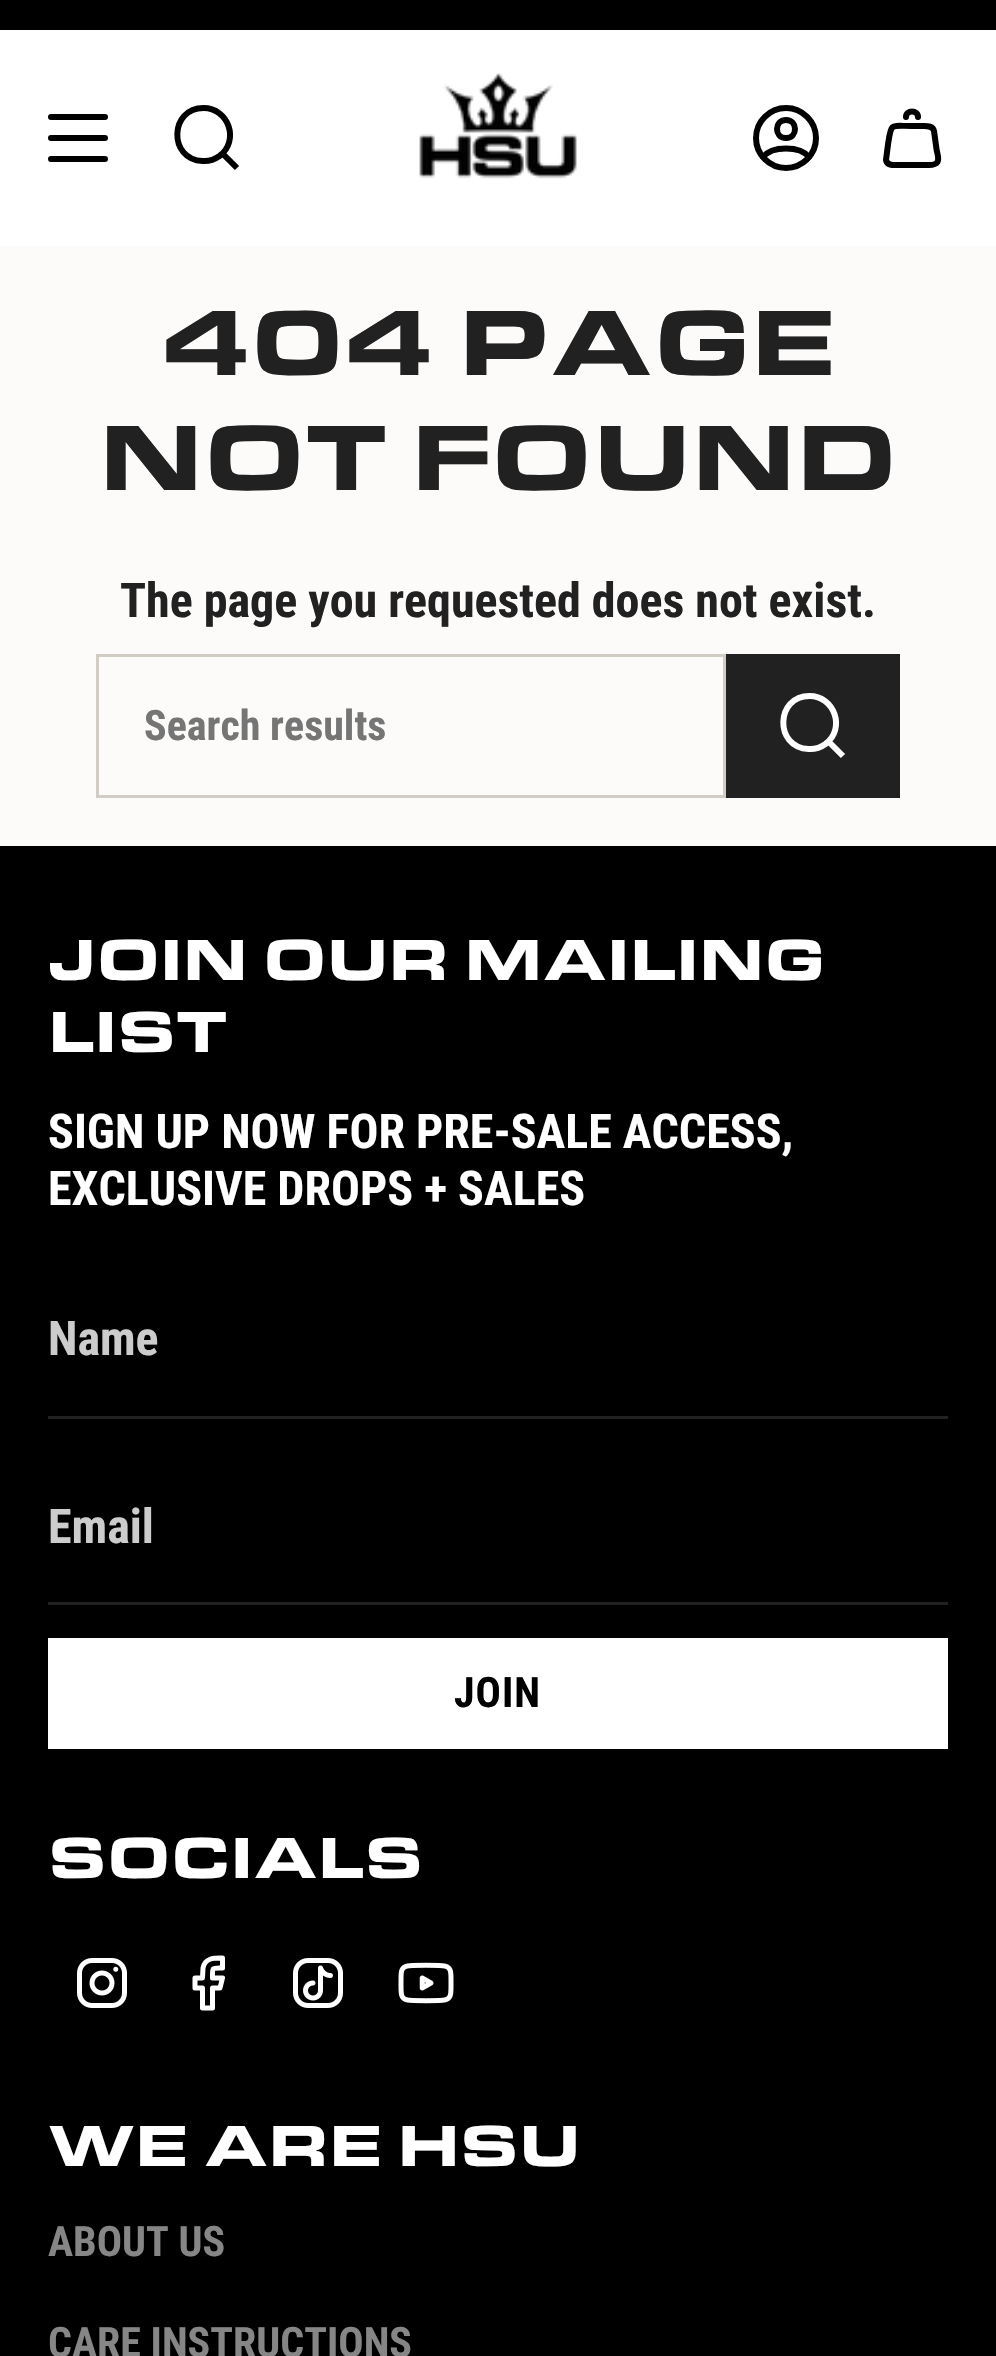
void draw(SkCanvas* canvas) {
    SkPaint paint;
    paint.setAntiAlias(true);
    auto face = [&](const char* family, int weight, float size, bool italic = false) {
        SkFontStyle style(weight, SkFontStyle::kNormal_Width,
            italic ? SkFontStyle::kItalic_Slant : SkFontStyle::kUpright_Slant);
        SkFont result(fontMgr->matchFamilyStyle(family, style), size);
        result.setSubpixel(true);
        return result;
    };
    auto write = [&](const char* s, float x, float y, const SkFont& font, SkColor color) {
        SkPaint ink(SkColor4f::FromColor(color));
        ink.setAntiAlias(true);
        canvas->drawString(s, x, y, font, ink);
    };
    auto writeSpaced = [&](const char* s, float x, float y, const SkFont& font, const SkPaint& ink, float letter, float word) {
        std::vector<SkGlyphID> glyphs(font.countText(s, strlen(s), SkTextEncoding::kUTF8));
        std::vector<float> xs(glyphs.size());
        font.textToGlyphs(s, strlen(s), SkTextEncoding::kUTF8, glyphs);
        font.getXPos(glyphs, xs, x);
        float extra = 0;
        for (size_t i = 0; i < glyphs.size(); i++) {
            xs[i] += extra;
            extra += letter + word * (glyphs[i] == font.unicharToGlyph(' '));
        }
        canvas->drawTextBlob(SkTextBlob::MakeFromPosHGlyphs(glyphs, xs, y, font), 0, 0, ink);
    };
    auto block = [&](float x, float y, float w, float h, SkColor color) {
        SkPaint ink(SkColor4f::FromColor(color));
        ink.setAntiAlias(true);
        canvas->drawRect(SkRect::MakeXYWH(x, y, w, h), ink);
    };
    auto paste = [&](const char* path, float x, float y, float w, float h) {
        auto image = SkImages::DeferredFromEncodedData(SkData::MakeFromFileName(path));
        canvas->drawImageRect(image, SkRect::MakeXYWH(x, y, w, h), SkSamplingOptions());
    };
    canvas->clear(SK_ColorWHITE);
    block(0, 0, 996, 30, SK_ColorBLACK);
    paint.setStyle(SkPaint::kStroke_Style);
    paint.setStrokeWidth(6);
    paint.setStrokeCap(SkPaint::kRound_Cap);
    paint.setStrokeJoin(SkPaint::kRound_Join);
    paint.setColor(SK_ColorBLACK);
    canvas->drawPath(SkPathBuilder().moveTo(51, 117).lineTo(105, 117).moveTo(51, 138).lineTo(105, 138).moveTo(51, 159).lineTo(105, 159).detach(), paint);
    paint.setStrokeCap(SkPaint::kButt_Cap);
    paint.setStrokeJoin(SkPaint::kMiter_Join);
    canvas->drawPath(SkPathBuilder().moveTo(203.5f, 108).cubicTo(228.5f, 108, 240, 140.5f, 219.5f, 156).cubicTo(214.5f, 159.5f, 208.5f, 161.5f, 202.5f, 161).cubicTo(168, 159.5f, 169.5f, 108, 203.5f, 108).close().moveTo(222.5f, 153.5f).lineTo(237, 168).detach(), paint);
    paste("pic1.png", 419, 73, 158, 106);
    paint.setStrokeCap(SkPaint::kRound_Cap);
    paint.setStrokeJoin(SkPaint::kRound_Join);
    canvas->drawPath(SkPathBuilder().moveTo(786, 108).cubicTo(769.5f, 108, 756, 121.5f, 756, 138).cubicTo(756, 154.5f, 769.5f, 168, 786, 168).cubicTo(802.5f, 168, 816, 154.5f, 816, 138).cubicTo(816, 121.5f, 802.5f, 108, 786, 108).close().detach(), paint);
    canvas->drawPath(SkPathBuilder().moveTo(763, 157).cubicTo(772, 145.5f, 800, 145.5f, 809, 157).moveTo(786, 138).cubicTo(798, 138, 798, 120, 786, 120).cubicTo(774, 120, 774, 138, 786, 138).close().detach(), paint);
    canvas->drawPath(SkPathBuilder().moveTo(934, 131).lineTo(936.5f, 149).cubicTo(937, 153, 939.5f, 158, 937.5f, 162).cubicTo(935, 166, 929.5f, 165, 925.5f, 165).lineTo(898.5f, 165).cubicTo(894, 165, 887, 166, 886, 160).lineTo(888, 144.5f).cubicTo(891.5f, 122.5f, 889.5f, 126, 912, 126).lineTo(922.5f, 126).cubicTo(927, 126, 933, 125.5f, 934, 131).close().moveTo(918, 117).cubicTo(918, 109.5f, 906, 109.5f, 906, 117).detach(), paint);
    block(0, 246, 996, 600, SkColorSetRGB(252, 251, 249));
    auto kFont1 = face("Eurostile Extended", 900, 96);
    write("404 PAGE", 160, 375, kFont1, SkColorSetRGB(33, 33, 33));
    write("NOT FOUND", 99, 490, kFont1, SkColorSetRGB(33, 33, 33));
    auto kFont2 = face("Roboto Condensed", 700, 48);
    write("The page you requested does not exist.", 120, 617, kFont2, SkColorSetRGB(33, 33, 33));
    paint.setStrokeWidth(3);
    paint.setStrokeCap(SkPaint::kButt_Cap);
    paint.setStrokeJoin(SkPaint::kMiter_Join);
    paint.setColor(SkColorSetRGB(209, 205, 196));
    canvas->drawRect(SkRect::MakeXYWH(97.5f, 655.5f, 627, 141), paint);
    auto kFont3 = face("Roboto Condensed", 700, 42);
    write("Search results", 144, 740, kFont3, SkColorSetRGB(117, 117, 117));
    block(726, 654, 174, 144, SkColorSetRGB(33, 33, 33));
    paint.setStrokeWidth(6);
    paint.setColor(SK_ColorWHITE);
    canvas->drawPath(SkPathBuilder().moveTo(809.5f, 696).cubicTo(834.5f, 696, 846, 728.5f, 825.5f, 744).cubicTo(820.5f, 747.5f, 814.5f, 749.5f, 808.5f, 749).cubicTo(774, 747.5f, 775.5f, 696, 809.5f, 696).close().moveTo(828.5f, 741.5f).lineTo(843, 756).detach(), paint);
    block(0, 846, 996, 1510, SK_ColorBLACK);
    auto kFont4 = face("Eurostile Extended", 900, 60);
    write("JOIN OUR MAILING", 48, 980, kFont4, SK_ColorWHITE);
    write("LIST", 48, 1052, kFont4, SK_ColorWHITE);
    write("SIGN UP NOW FOR PRE-SALE ACCESS,", 48, 1148, kFont2, SK_ColorWHITE);
    write("EXCLUSIVE DROPS + SALES", 48, 1205, kFont2, SK_ColorWHITE);
    block(48, 1416, 900, 3, SkColorSetRGB(33, 33, 33));
    write("Name", 48, 1355, kFont2, SkColorSetRGB(204, 204, 204));
    block(48, 1602, 900, 3, SkColorSetRGB(33, 33, 33));
    write("Email", 48, 1543, kFont2, SkColorSetRGB(204, 204, 204));
    block(48, 1638, 900, 111, SK_ColorWHITE);
    paint.setStyle(SkPaint::kFill_Style);
    paint.setColor(SK_ColorBLACK);
    writeSpaced("JOIN", 454, 1707, kFont3, paint, 1, 0);
    write("SOCIALS", 48, 1878, kFont4, SK_ColorWHITE);
    paste("pic2.png", 77, 1958, 50, 50);
    paint.setStyle(SkPaint::kStroke_Style);
    paint.setStrokeWidth(5);
    paint.setStrokeCap(SkPaint::kRound_Cap);
    paint.setStrokeJoin(SkPaint::kRound_Join);
    paint.setColor(SK_ColorWHITE);
    canvas->drawPath(SkPathBuilder().moveTo(222.5f, 1958).cubicTo(214.5f, 1958, 205, 1957.5f, 203, 1968).lineTo(202.5f, 1978).lineTo(195, 1978).lineTo(195, 1988).lineTo(202.5f, 1988).lineTo(202.5f, 2008).lineTo(212.5f, 2008).lineTo(212.5f, 1988).lineTo(220, 1988).lineTo(222.5f, 1978).lineTo(212.5f, 1978).cubicTo(212.5f, 1967, 211.5f, 1968, 222.5f, 1968).close().detach(), paint);
    paste("pic3.png", 293, 1958, 50, 50);
    paste("pic4.png", 398, 1962, 56, 42);
    write("WE ARE HSU", 48, 2166, kFont4, SK_ColorWHITE);
    write("ABOUT US", 48, 2256, kFont3, SkColorSetRGB(134, 134, 134));
    write("CARE INSTRUCTIONS", 48, 2357, kFont3, SkColorSetRGB(134, 134, 134));
}
